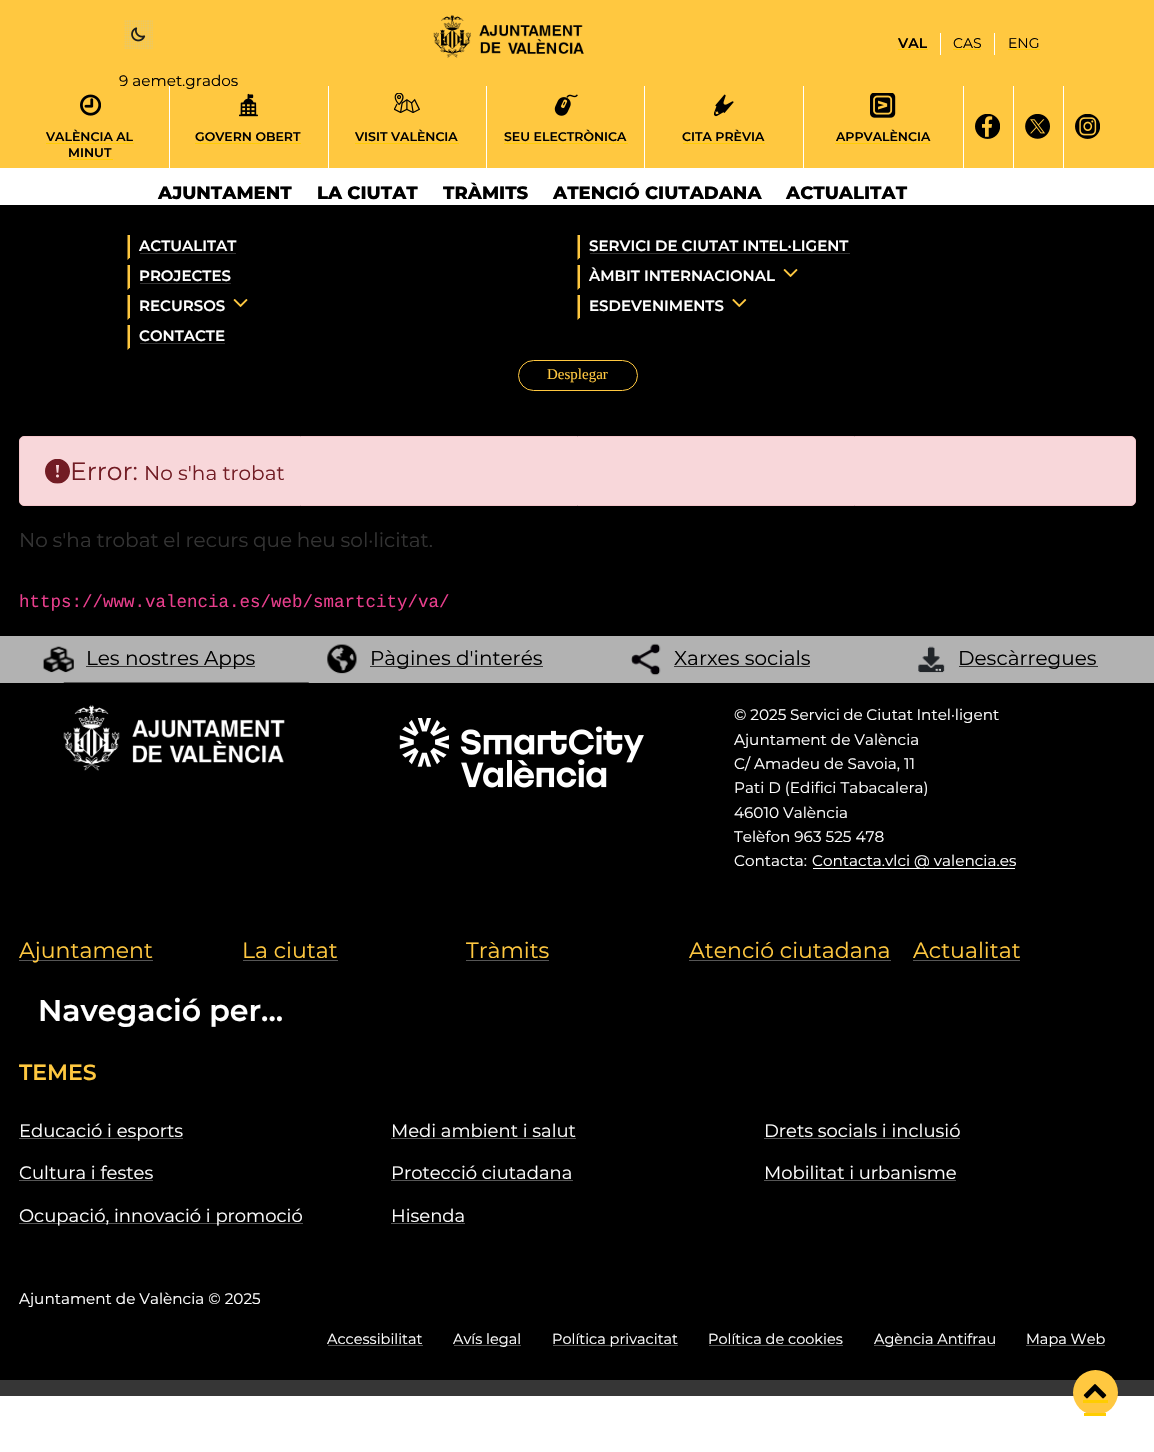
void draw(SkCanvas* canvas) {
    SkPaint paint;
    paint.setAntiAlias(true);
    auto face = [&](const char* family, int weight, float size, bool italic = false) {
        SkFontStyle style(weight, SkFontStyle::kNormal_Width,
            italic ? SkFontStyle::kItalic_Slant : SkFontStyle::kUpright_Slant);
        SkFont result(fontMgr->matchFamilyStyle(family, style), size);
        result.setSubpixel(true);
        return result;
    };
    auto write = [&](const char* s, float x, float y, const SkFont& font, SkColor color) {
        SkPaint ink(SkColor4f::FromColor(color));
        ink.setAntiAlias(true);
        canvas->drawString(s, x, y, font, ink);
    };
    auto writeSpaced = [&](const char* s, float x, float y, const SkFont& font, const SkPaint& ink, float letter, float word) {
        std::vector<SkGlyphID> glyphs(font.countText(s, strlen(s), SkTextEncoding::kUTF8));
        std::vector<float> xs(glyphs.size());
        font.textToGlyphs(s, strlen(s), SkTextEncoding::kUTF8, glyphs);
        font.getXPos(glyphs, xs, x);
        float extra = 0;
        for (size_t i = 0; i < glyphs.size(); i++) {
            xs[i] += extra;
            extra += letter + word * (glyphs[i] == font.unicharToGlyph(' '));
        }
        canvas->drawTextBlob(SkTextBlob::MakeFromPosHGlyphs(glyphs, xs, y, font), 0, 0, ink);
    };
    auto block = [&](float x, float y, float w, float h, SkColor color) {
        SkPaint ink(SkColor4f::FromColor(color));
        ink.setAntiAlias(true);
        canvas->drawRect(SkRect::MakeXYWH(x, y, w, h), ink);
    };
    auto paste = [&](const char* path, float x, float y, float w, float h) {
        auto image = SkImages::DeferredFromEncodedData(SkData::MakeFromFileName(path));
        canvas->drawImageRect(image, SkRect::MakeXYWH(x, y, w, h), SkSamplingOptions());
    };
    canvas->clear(SK_ColorWHITE);
    block(0, 1380, 1154, 16, SkColorSetRGB(54, 54, 54));
    block(0, 0, 1154, 168, SkColorSetRGB(255, 200, 64));
    paste("pic1.png", 433, 15, 151, 43);
    block(940, 33, 1, 22, SK_ColorWHITE);
    auto kFont1 = face("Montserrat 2", 600, 14);
    write("VAL", 898, 48, kFont1, SK_ColorBLACK);
    block(898, 49, 30, 1, SkColorSetRGB(255, 205, 0));
    block(994, 33, 1, 22, SK_ColorWHITE);
    auto kFont2 = face("Montserrat", 400, 14);
    write("CAS", 953, 48, kFont2, SK_ColorBLACK);
    block(953, 49, 28, 1, SkColorSetRGB(255, 205, 0));
    write("ENG", 1008, 48, kFont2, SK_ColorBLACK);
    block(1008, 49, 32, 1, SkColorSetRGB(255, 205, 0));
    paste("pic2.png", 124, 20, 29, 29);
    block(169, 86, 1, 82, SK_ColorWHITE);
    auto kFont3 = face("Montserrat", 400, 15.25f);
    write("9 aemet.grados", 119, 86, kFont3, SK_ColorBLACK);
    paste("pic3.png", 80, 94, 21, 22);
    auto kFont4 = face("Montserrat", 600, 12.5f);
    write("VALÈNCIA AL", 46, 141, kFont4, SK_ColorBLACK);
    block(46, 143, 88, 1, SkColorSetRGB(255, 205, 0));
    write("MINUT", 68, 157, kFont4, SK_ColorBLACK);
    block(69, 159, 44, 1, SkColorSetRGB(255, 205, 0));
    block(328, 86, 1, 82, SK_ColorWHITE);
    paste("pic4.png", 239, 93, 19, 24);
    write("GOVERN OBERT", 195, 141, kFont4, SK_ColorBLACK);
    block(195, 143, 106, 1, SkColorSetRGB(255, 205, 0));
    block(486, 86, 1, 82, SK_ColorWHITE);
    paste("pic5.png", 394, 93, 26, 20);
    write("VISIT VALÈNCIA", 355, 141, kFont4, SK_ColorBLACK);
    block(355, 143, 104, 1, SkColorSetRGB(255, 205, 0));
    block(644, 86, 1, 82, SK_ColorWHITE);
    paste("pic6.png", 554, 94, 24, 22);
    write("SEU ELECTRÒNICA", 504, 141, kFont4, SK_ColorBLACK);
    block(504, 143, 124, 1, SkColorSetRGB(255, 205, 0));
    block(803, 86, 1, 82, SK_ColorWHITE);
    paste("pic7.png", 714, 94, 20, 23);
    write("CITA PRÈVIA", 682, 141, kFont4, SK_ColorBLACK);
    block(683, 143, 82, 1, SkColorSetRGB(255, 205, 0));
    paste("pic8.png", 870, 93, 26, 25);
    write("APPVALÈNCIA", 836, 141, kFont4, SK_ColorBLACK);
    block(835, 143, 95, 1, SkColorSetRGB(255, 205, 0));
    block(963, 86, 1, 82, SK_ColorWHITE);
    paste("pic9.png", 975, 114, 25, 25);
    block(1013, 86, 1, 82, SK_ColorWHITE);
    paste("pic10.png", 1025, 114, 25, 25);
    block(1063, 86, 1, 82, SK_ColorWHITE);
    paste("pic11.png", 1075, 114, 25, 25);
    auto kFont5 = face("Montserrat", 800, 18);
    write("AJUNTAMENT", 158, 199, kFont5, SK_ColorBLACK);
    write("LA CIUTAT", 317, 199, kFont5, SK_ColorBLACK);
    write("TRÀMITS", 443, 199, kFont5, SK_ColorBLACK);
    write("ATENCIÓ CIUTADANA", 553, 199, kFont5, SK_ColorBLACK);
    write("ACTUALITAT", 786, 199, kFont5, SK_ColorBLACK);
    block(0, 205, 1154, 431, SK_ColorBLACK);
    paint.setColor(SkColorSetRGB(255, 200, 64));
    canvas->drawPath(SkPathBuilder().moveTo(127.5f, 260).lineTo(127.5f, 235).lineTo(130, 235).lineTo(130, 257.5f).close().detach(), paint);
    auto kFont6 = face("Montserrat 2", 600, 15);
    write("ACTUALITAT", 139, 251, kFont6, SK_ColorWHITE);
    block(140, 253, 96, 1, SkColorSetRGB(51, 51, 51));
    canvas->drawPath(SkPathBuilder().moveTo(577.5f, 260).lineTo(577.5f, 235).lineTo(580, 235).lineTo(580, 257.5f).close().detach(), paint);
    write("SERVICI DE CIUTAT INTEL·LIGENT", 589, 251, kFont6, SK_ColorWHITE);
    block(590, 253, 260, 1, SkColorSetRGB(51, 51, 51));
    canvas->drawPath(SkPathBuilder().moveTo(127.5f, 290).lineTo(127.5f, 265).lineTo(130, 265).lineTo(130, 287.5f).close().detach(), paint);
    write("PROJECTES", 139, 281, kFont6, SK_ColorWHITE);
    block(140, 283, 91, 1, SkColorSetRGB(51, 51, 51));
    canvas->drawPath(SkPathBuilder().moveTo(577.5f, 290).lineTo(577.5f, 265).lineTo(580, 265).lineTo(580, 287.5f).close().detach(), paint);
    write("ÀMBIT INTERNACIONAL", 589, 281, kFont6, SK_ColorWHITE);
    paste("pic12.png", 783, 269, 15, 8);
    canvas->drawPath(SkPathBuilder().moveTo(127.5f, 320).lineTo(127.5f, 295).lineTo(130, 295).lineTo(130, 317.5f).close().detach(), paint);
    write("RECURSOS", 139, 311, kFont6, SK_ColorWHITE);
    paste("pic12.png", 233, 299, 15, 8);
    canvas->drawPath(SkPathBuilder().moveTo(577.5f, 320).lineTo(577.5f, 295).lineTo(580, 295).lineTo(580, 317.5f).close().detach(), paint);
    write("ESDEVENIMENTS", 589, 311, kFont6, SK_ColorWHITE);
    paste("pic13.png", 732, 299, 15, 8);
    canvas->drawPath(SkPathBuilder().moveTo(127.5f, 350).lineTo(127.5f, 325).lineTo(130, 325).lineTo(130, 347.5f).close().detach(), paint);
    write("CONTACTE", 139, 341, kFont6, SK_ColorWHITE);
    block(140, 343, 85, 1, SkColorSetRGB(51, 51, 51));
    paint.setStyle(SkPaint::kStroke_Style);
    paint.setStrokeWidth(1);
    canvas->drawRoundRect(SkRect::MakeXYWH(518.5f, 360.5f, 119, 30), 15, 15, paint);
    auto kFont7 = face("Liberation Serif", 400, 15);
    write("Desplegar", 547, 379, kFont7, SkColorSetRGB(255, 200, 64));
    paint.setStyle(SkPaint::kFill_Style);
    paint.setColor(SkColorSetRGB(248, 215, 218));
    canvas->drawRoundRect(SkRect::MakeXYWH(19.5f, 436.5f, 1116, 69), 4.5f, 4.5f, paint);
    paint.setStyle(SkPaint::kStroke_Style);
    paint.setColor(SkColorSetRGB(245, 198, 203));
    canvas->drawRoundRect(SkRect::MakeXYWH(19.5f, 436.5f, 1116, 69), 4.5f, 4.5f, paint);
    paste("pic14.png", 45, 459, 25, 25);
    auto kFont8 = face("Montserrat", 400, 25);
    write("Error:", 70, 480, kFont8, SkColorSetRGB(114, 28, 36));
    auto kFont9 = face("Montserrat", 400, 20);
    write("No s'ha trobat", 144, 480, kFont9, SkColorSetRGB(114, 28, 36));
    paint.setStyle(SkPaint::kFill_Style);
    paint.setColor(SkColorSetRGB(51, 51, 51));
    writeSpaced("No s'ha trobat el recurs que heu sol·licitat.", 19, 547, kFont9, paint, 0, -0.5f);
    auto kFont10 = face("Liberation Mono", 400, 17.5f);
    write("https://www.valencia.es/web/smartcity/va/", 19, 607, kFont10, SkColorSetRGB(232, 62, 140));
    block(0, 636, 1154, 47, SkColorSetRGB(178, 178, 178));
    paste("pic15.png", 43, 646, 31, 27);
    block(86, 666, 169, 1, SkColorSetRGB(51, 51, 51));
    write("Les nostres Apps", 86, 665, kFont9, SK_ColorBLACK);
    paste("pic16.png", 327, 644, 30, 30);
    block(370, 666, 173, 1, SkColorSetRGB(51, 51, 51));
    write("Pàgines d'interés", 370, 665, kFont9, SK_ColorBLACK);
    paste("pic17.png", 631, 643, 30, 33);
    write("Xarxes socials", 674, 665, kFont9, SK_ColorBLACK);
    block(674, 666, 136, 1, SkColorSetRGB(51, 51, 51));
    paste("pic18.png", 918, 646, 27, 27);
    block(959, 666, 139, 1, SkColorSetRGB(51, 51, 51));
    write("Descàrregues", 958, 665, kFont9, SK_ColorBLACK);
    block(0, 683, 1154, 697, SK_ColorBLACK);
    paste("pic19.png", 63, 682, 246, 89);
    paste("pic20.png", 399, 718, 245, 70);
    write("© 2025", 734, 720, kFont3, SK_ColorWHITE);
    paint.setColor(SK_ColorWHITE);
    writeSpaced("Servici de Ciutat Intel·ligent", 790, 720, kFont3, paint, 0, -0.5f);
    write("Ajuntament de València", 734, 745, kFont3, SK_ColorWHITE);
    write("C/ Amadeu de Savoia, 11", 734, 769, kFont3, SK_ColorWHITE);
    write("Pati D (Edifici Tabacalera)", 734, 793, kFont3, SK_ColorWHITE);
    write("46010 València", 734, 818, kFont3, SK_ColorWHITE);
    write("Telèfon 963 525 478", 734, 842, kFont3, SK_ColorWHITE);
    write("Contacta:", 734, 866, kFont3, SK_ColorWHITE);
    block(813, 868, 202, 1, SK_ColorWHITE);
    write("Contacta.vlci @ valencia.es", 812, 866, kFont3, SK_ColorWHITE);
    block(19, 960, 134, 1, SkColorSetRGB(86, 86, 86));
    auto kFont11 = face("Montserrat", 400, 22);
    write("Ajuntament", 19, 958, kFont11, SkColorSetRGB(255, 200, 64));
    write("La ciutat", 242, 958, kFont11, SkColorSetRGB(255, 200, 64));
    block(243, 960, 95, 1, SkColorSetRGB(86, 86, 86));
    write("Tràmits", 466, 958, kFont11, SkColorSetRGB(255, 200, 64));
    block(466, 960, 83, 1, SkColorSetRGB(86, 86, 86));
    write("Atenció ciutadana", 689, 958, kFont11, SkColorSetRGB(255, 200, 64));
    block(689, 960, 202, 1, SkColorSetRGB(86, 86, 86));
    write("Actualitat", 913, 958, kFont11, SkColorSetRGB(255, 200, 64));
    block(913, 960, 107, 1, SkColorSetRGB(86, 86, 86));
    auto kFont12 = face("Montserrat 2", 600, 30);
    write("Navegació per...", 38, 1021, kFont12, SK_ColorWHITE);
    auto kFont13 = face("Montserrat", 600, 22);
    write("TEMES", 19, 1080, kFont13, SkColorSetRGB(255, 200, 64));
    block(19, 1138, 164, 1, SkColorSetRGB(86, 86, 86));
    auto kFont14 = face("Montserrat", 400, 18);
    write("Educació i esports", 19, 1137, kFont14, SK_ColorWHITE);
    write("Medi ambient i salut", 391, 1137, kFont14, SK_ColorWHITE);
    block(391, 1138, 185, 1, SkColorSetRGB(86, 86, 86));
    write("Drets socials i inclusió", 764, 1137, kFont14, SK_ColorWHITE);
    block(764, 1138, 196, 1, SkColorSetRGB(86, 86, 86));
    write("Cultura i festes", 19, 1179, kFont14, SK_ColorWHITE);
    block(19, 1180, 134, 1, SkColorSetRGB(86, 86, 86));
    write("Protecció ciutadana", 391, 1179, kFont14, SK_ColorWHITE);
    block(391, 1180, 182, 1, SkColorSetRGB(86, 86, 86));
    write("Mobilitat i urbanisme", 764, 1179, kFont14, SK_ColorWHITE);
    block(764, 1180, 192, 1, SkColorSetRGB(86, 86, 86));
    block(19, 1223, 284, 1, SkColorSetRGB(86, 86, 86));
    write("Ocupació, innovació i promoció", 19, 1222, kFont14, SK_ColorWHITE);
    write("Hisenda", 391, 1222, kFont14, SK_ColorWHITE);
    block(391, 1223, 74, 1, SkColorSetRGB(86, 86, 86));
    write("Ajuntament de València © 2025", 19, 1304, kFont3, SK_ColorWHITE);
    auto kFont15 = face("Montserrat", 400, 14.5f);
    write("Accessibilitat", 327, 1344, kFont15, SK_ColorWHITE);
    block(328, 1345, 95, 1, SkColorSetRGB(86, 86, 86));
    block(454, 1345, 67, 1, SkColorSetRGB(86, 86, 86));
    write("Avís legal", 453, 1344, kFont15, SK_ColorWHITE);
    block(553, 1345, 125, 1, SkColorSetRGB(86, 86, 86));
    write("Política privacitat", 552, 1344, kFont15, SK_ColorWHITE);
    write("Política de cookies", 708, 1344, kFont15, SK_ColorWHITE);
    block(709, 1345, 134, 1, SkColorSetRGB(86, 86, 86));
    block(874, 1345, 121, 1, SkColorSetRGB(86, 86, 86));
    write("Agència Antifrau", 874, 1344, kFont15, SK_ColorWHITE);
    block(1026, 1345, 79, 1, SkColorSetRGB(86, 86, 86));
    write("Mapa Web", 1026, 1344, kFont15, SK_ColorWHITE);
    paint.setColor(SkColorSetRGB(255, 200, 64));
    canvas->drawCircle(1095.5f, 1392.5f, 22.5f, paint);
    block(1084, 1413, 22, 3, SkColorSetRGB(255, 205, 0));
    paste("pic21.png", 1083, 1384, 24, 15);
    block(1083, 1400, 25, 3, SkColorSetRGB(255, 205, 0));
}
